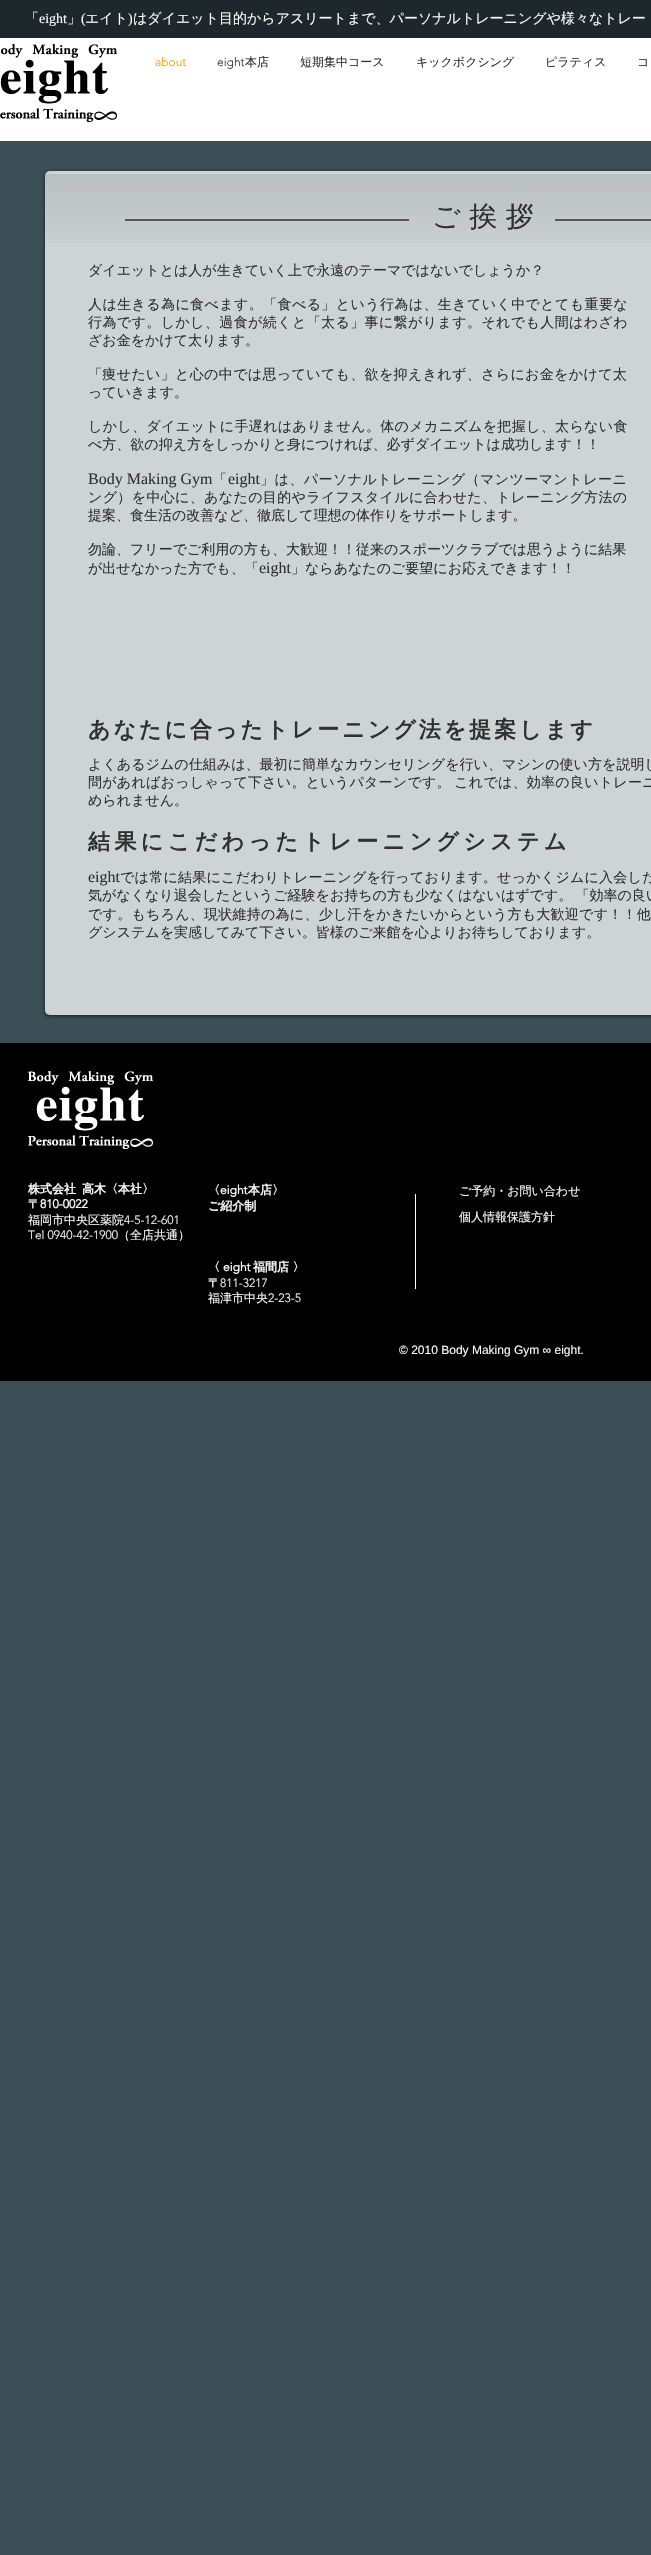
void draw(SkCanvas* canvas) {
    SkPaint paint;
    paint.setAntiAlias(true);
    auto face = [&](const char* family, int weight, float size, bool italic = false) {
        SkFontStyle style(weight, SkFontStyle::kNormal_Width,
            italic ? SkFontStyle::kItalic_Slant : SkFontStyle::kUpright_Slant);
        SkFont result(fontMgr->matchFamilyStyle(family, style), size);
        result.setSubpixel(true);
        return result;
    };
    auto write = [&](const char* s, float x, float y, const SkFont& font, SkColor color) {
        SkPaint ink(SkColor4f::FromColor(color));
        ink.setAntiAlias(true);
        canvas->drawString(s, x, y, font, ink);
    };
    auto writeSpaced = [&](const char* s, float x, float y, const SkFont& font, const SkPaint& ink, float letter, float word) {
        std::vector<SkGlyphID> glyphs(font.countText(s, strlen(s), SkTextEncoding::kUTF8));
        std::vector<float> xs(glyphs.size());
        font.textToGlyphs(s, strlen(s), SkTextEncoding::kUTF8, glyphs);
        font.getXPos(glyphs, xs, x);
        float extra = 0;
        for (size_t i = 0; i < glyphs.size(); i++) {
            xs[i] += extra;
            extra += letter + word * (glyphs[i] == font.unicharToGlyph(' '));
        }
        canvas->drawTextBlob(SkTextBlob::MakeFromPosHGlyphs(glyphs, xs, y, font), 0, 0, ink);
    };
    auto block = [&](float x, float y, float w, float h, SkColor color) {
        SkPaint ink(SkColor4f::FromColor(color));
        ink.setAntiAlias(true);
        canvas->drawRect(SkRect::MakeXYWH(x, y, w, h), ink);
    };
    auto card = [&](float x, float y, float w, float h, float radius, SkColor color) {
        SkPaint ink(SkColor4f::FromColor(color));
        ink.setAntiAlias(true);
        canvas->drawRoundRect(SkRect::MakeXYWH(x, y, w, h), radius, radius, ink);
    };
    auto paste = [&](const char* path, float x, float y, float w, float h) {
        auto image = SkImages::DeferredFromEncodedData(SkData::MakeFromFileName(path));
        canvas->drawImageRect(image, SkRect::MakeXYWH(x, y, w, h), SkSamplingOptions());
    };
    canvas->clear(SkColorSetRGB(60, 79, 87));
    block(0, 0, 651, 38, SkColorSetRGB(30, 40, 44));
    auto kFont1 = face("WenQuanYi Zen Hei", 500, 14);
    write("「", 25, 23, kFont1, SkColorSetRGB(250, 250, 250));
    auto kFont2 = face("Liberation Serif", 400, 14);
    write("eight", 39, 23, kFont2, SkColorSetRGB(250, 250, 250));
    write("」", 67, 23, kFont1, SkColorSetRGB(250, 250, 250));
    write("(", 81, 23, kFont2, SkColorSetRGB(250, 250, 250));
    write("エイト", 85, 23, kFont1, SkColorSetRGB(250, 250, 250));
    write(")", 128, 23, kFont2, SkColorSetRGB(250, 250, 250));
    write("はダイエット目的からアスリートまで、パーソナルトレーニングや様々なトレー", 133, 23, kFont1, SkColorSetRGB(250, 250, 250));
    block(0, 38, 651, 103, SK_ColorWHITE);
    paste("pic1.png", 0, 44, 117, 78);
    auto kFont3 = face("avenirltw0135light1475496", 300, 12);
    write("about", 155, 66, kFont3, SkColorSetRGB(252, 152, 3));
    write("eight", 217, 66, kFont3, SkColorSetRGB(48, 48, 48));
    auto kFont4 = face("WenQuanYi Zen Hei", 500, 12);
    write("本店", 245, 66, kFont4, SkColorSetRGB(48, 48, 48));
    write("短期集中コース", 300, 66, kFont4, SkColorSetRGB(48, 48, 48));
    write("キックボクシング", 416, 66, kFont4, SkColorSetRGB(48, 48, 48));
    write("ピラティス", 545, 66, kFont4, SkColorSetRGB(48, 48, 48));
    write("コ", 637, 66, kFont4, SkColorSetRGB(48, 48, 48));
    canvas->save();
    canvas->clipPath(SkPathBuilder(SkPathFillType::kEvenOdd).moveTo(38, 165).lineTo(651, 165).lineTo(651, 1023).lineTo(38, 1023).close().moveTo(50, 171).lineTo(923, 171).cubicTo(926, 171, 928, 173, 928, 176).lineTo(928, 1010).cubicTo(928, 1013, 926, 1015, 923, 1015).lineTo(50, 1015).cubicTo(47, 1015, 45, 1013, 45, 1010).lineTo(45, 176).cubicTo(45, 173, 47, 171, 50, 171).close().detach(), true);
    paint.setColor(SkColorSetARGB(153, 0, 0, 0));
    paint.setMaskFilter(SkMaskFilter::MakeBlur(kNormal_SkBlurStyle, 2));
    canvas->drawRoundRect(SkRect::MakeXYWH(45, 172, 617, 844), 5, 5, paint);
    paint.setMaskFilter(nullptr);
    canvas->restore();
    card(45, 171, 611, 844, 5, SkColorSetARGB(191, 255, 255, 255));
    paste("pic2.png", 45, 174, 606, 69);
    block(125, 219, 284, 2, SkColorSetRGB(93, 86, 76));
    auto kFont5 = face("WenQuanYi Zen Hei", 500, 28);
    paint.setColor(SkColorSetRGB(48, 48, 48));
    writeSpaced("ご挨拶", 432, 226, kFont5, paint, 8.5f, 0);
    block(555, 219, 96, 2, SkColorSetRGB(93, 86, 76));
    write("ダイエットとは人が生きていく上で永遠のテーマではないでしょうか？", 88, 275, kFont1, SkColorSetRGB(48, 48, 48));
    writeSpaced("人は生きる為に食べます。「食べる」という行為は、生きていく中でとても重要な", 88, 309, kFont1, paint, 0.4f, 0);
    writeSpaced("行為です。しかし、過食が続くと「太る」事に繋がります。それでも人間はわざわ", 88, 327, kFont1, paint, 0.4f, 0);
    write("ざお金をかけて太ります。", 88, 345, kFont1, SkColorSetRGB(48, 48, 48));
    writeSpaced("「痩せたい」と心の中では思っていても、欲を抑えきれず、さらにお金をかけて太", 88, 379, kFont1, paint, 0.35f, 0);
    write("っていきます。", 88, 397, kFont1, SkColorSetRGB(48, 48, 48));
    writeSpaced("しかし、ダイエットに手遅れはありません。体のメカニズムを把握し、太らない食", 88, 431, kFont1, paint, 0.35f, 0);
    write("べ方、欲の抑え方をしっかりと身につければ、必ずダイエットは成功します！！", 88, 449, kFont1, SkColorSetRGB(48, 48, 48));
    auto kFont6 = face("Liberation Serif", 400, 16);
    write("Body Making Gym", 88, 484, kFont6, SkColorSetRGB(48, 48, 48));
    write("「", 213, 484, kFont1, SkColorSetRGB(48, 48, 48));
    write("eight", 228, 484, kFont6, SkColorSetRGB(48, 48, 48));
    writeSpaced("」は、パーソナルトレーニング（マンツーマントレーニ", 260, 484, kFont1, paint, 0.45f, 0);
    writeSpaced("ング）を中心に、あなたの目的やライフスタイルに合わせた、トレーニング方法の", 88, 502, kFont1, paint, 0.35f, 0);
    write("提案、食生活の改善など、徹底して理想の体作りをサポートします。", 88, 520, kFont1, SkColorSetRGB(48, 48, 48));
    write("勿論、フリーでご利用の方も、大歓迎！！従来のスポーツクラブでは思うように結果", 88, 554, kFont1, SkColorSetRGB(48, 48, 48));
    write("が出せなかった方でも、「", 88, 573, kFont1, SkColorSetRGB(48, 48, 48));
    write("eight", 259, 573, kFont6, SkColorSetRGB(48, 48, 48));
    write("」ならあなたのご要望にお応えできます！！", 291, 573, kFont1, SkColorSetRGB(48, 48, 48));
    auto kFont7 = face("WenQuanYi Zen Hei", 700, 22);
    writeSpaced("あなたに合ったトレーニング法を提案します", 88, 737, kFont7, paint, 3, 0);
    writeSpaced("よくあるジムの仕組みは、最初に簡単なカウンセリングを行い、マシンの使い方を説明し", 88, 769, kFont1, paint, 0.05f, 0);
    writeSpaced("問があればおっしゃって下さい。というパターンです。 これでは、効率の良いトレーニ", 88, 787, kFont1, paint, 0.25f, -1);
    write("められません。", 88, 805, kFont1, SkColorSetRGB(48, 48, 48));
    writeSpaced("結果にこだわったトレーニングシステム", 88, 849, kFont7, paint, 4.4f, 0);
    write("eight", 88, 882, kFont6, SkColorSetRGB(48, 48, 48));
    writeSpaced("では常に結果にこだわりトレーニングを行っております。せっかくジムに入会した", 120, 882, kFont1, paint, 0.25f, 0);
    writeSpaced("気がなくなり退会したというご経験をお持ちの方も少なくはないはずです。 「効率の良い", 88, 900, kFont1, paint, 0, -1);
    writeSpaced("です。もちろん、現状維持の為に、少し汗をかきたいからという方も大歓迎です！！他", 88, 919, kFont1, paint, 0.25f, 0);
    write("グシステムを実感してみて下さい。皆様のご来館を心よりお待ちしております。", 88, 937, kFont1, SkColorSetRGB(48, 48, 48));
    block(0, 1043, 651, 338, SK_ColorBLACK);
    paste("pic3.png", 28, 1071, 125, 78);
    auto kFont8 = face("WenQuanYi Zen Hei", 700, 12);
    write("株式会社", 28, 1193, kFont8, SkColorSetRGB(250, 250, 250));
    write("高木〈本社〉", 82, 1193, kFont8, SkColorSetRGB(250, 250, 250));
    write("〒", 28, 1208, kFont8, SkColorSetRGB(250, 250, 250));
    auto kFont9 = face("avenirltw0135light1475496", 700, 12);
    write("810-0022", 40, 1208, kFont9, SkColorSetRGB(250, 250, 250));
    write("福岡市中央区薬院", 28, 1224, kFont4, SkColorSetRGB(250, 250, 250));
    write("4-5-12-601", 124, 1224, kFont3, SkColorSetRGB(250, 250, 250));
    write("Tel 0940-42-1900", 28, 1239, kFont3, SkColorSetRGB(250, 250, 250));
    write("（全店共通）", 118, 1239, kFont4, SkColorSetRGB(250, 250, 250));
    write("〈", 208, 1194, kFont8, SkColorSetRGB(250, 250, 250));
    write("eight", 220, 1194, kFont9, SkColorSetRGB(250, 250, 250));
    write("本店〉", 248, 1194, kFont8, SkColorSetRGB(250, 250, 250));
    write("ご紹介制", 208, 1210, kFont8, SkColorSetRGB(250, 250, 250));
    write("ご予約・お問い合わせ", 459, 1195, kFont4, SkColorSetRGB(250, 250, 250));
    block(415, 1194, 1, 95, SK_ColorWHITE);
    write("個人情報保護方針", 459, 1221, kFont4, SkColorSetRGB(250, 250, 250));
    write("〈", 208, 1271, kFont8, SkColorSetRGB(250, 250, 250));
    write("eight", 223, 1271, kFont9, SkColorSetRGB(250, 250, 250));
    write("福間店 〉", 253, 1271, kFont8, SkColorSetRGB(250, 250, 250));
    write("〒", 208, 1287, kFont8, SkColorSetRGB(250, 250, 250));
    write("811-3217", 220, 1287, kFont3, SkColorSetRGB(250, 250, 250));
    write("福津市中央", 208, 1302, kFont4, SkColorSetRGB(250, 250, 250));
    write("2-23-5", 268, 1302, kFont3, SkColorSetRGB(250, 250, 250));
    auto kFont10 = face("Liberation Sans", 400, 12);
    write("© 2010 Body Making Gym ∞ eight.", 399, 1354, kFont10, SkColorSetRGB(250, 250, 250));
}
